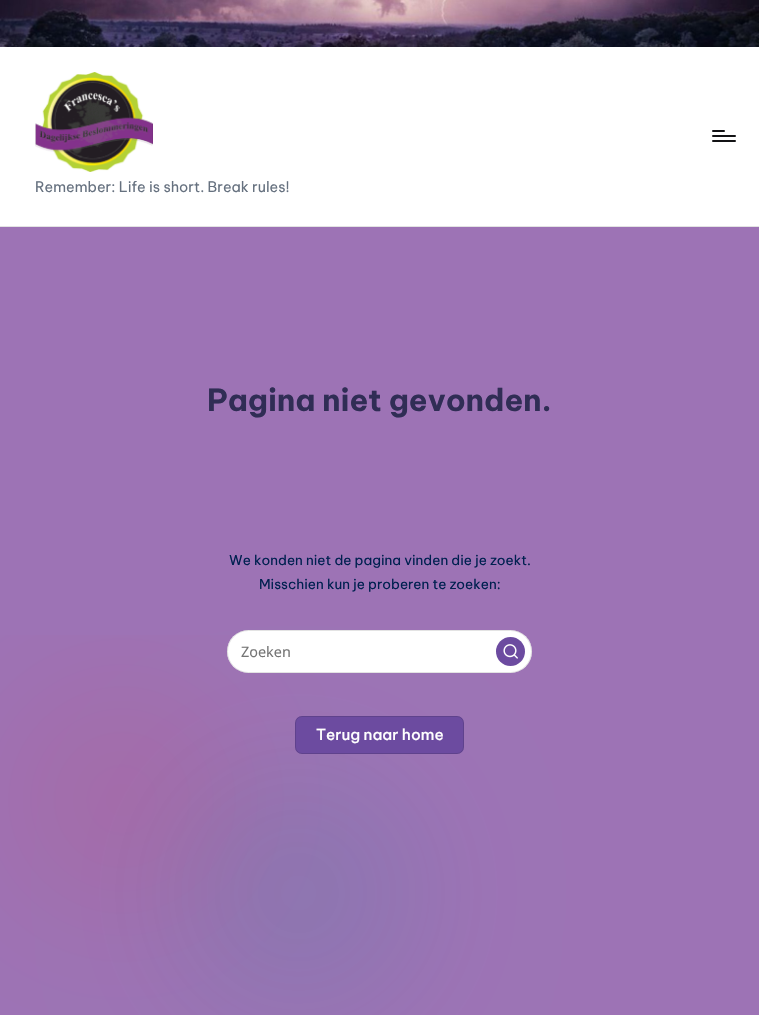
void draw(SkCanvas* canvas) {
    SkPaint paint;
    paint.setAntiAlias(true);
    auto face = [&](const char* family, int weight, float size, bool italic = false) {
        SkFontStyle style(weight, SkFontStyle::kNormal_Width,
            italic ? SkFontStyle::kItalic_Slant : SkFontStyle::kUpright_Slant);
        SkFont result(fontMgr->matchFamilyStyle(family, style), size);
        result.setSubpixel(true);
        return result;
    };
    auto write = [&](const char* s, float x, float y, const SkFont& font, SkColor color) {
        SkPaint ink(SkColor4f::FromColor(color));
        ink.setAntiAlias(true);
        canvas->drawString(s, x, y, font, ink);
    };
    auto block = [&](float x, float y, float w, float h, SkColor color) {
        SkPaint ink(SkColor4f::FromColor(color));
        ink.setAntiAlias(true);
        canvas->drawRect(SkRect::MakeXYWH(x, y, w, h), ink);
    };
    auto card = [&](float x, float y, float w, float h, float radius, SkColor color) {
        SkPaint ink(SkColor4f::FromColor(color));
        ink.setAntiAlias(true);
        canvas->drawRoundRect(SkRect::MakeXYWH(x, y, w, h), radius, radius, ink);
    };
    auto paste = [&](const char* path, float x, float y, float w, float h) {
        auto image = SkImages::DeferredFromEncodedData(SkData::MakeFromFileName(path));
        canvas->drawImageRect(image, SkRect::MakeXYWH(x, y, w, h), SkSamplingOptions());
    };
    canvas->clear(SkColorSetRGB(157, 115, 181));
    paste("pic1.png", 0, 0, 759, 47);
    block(0, 47, 759, 179, SK_ColorWHITE);
    block(0, 226, 759, 1, SkColorSetRGB(227, 227, 227));
    card(712, 135, 24, 2, 1, SkColorSetRGB(19, 19, 21));
    card(712, 130, 13, 2, 1, SkColorSetRGB(19, 19, 21));
    card(712, 140, 24, 2, 1, SkColorSetRGB(19, 19, 21));
    paste("pic2.png", 35, 72, 118, 100);
    auto kFont1 = face("Be Vietnam Pro", 400, 14.4f);
    write("Remember: Life is short. Break rules!", 35, 192, kFont1, SkColorSetRGB(102, 113, 127));
    auto kFont2 = face("Be Vietnam Pro", 700, 30.5f);
    write("Pagina niet gevonden.", 207, 411, kFont2, SkColorSetRGB(48, 45, 85));
    canvas->save();
    canvas->clipRect(SkRect::MakeXYWH(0, 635, 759, 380));
    paint.setColor(SkColorSetRGB(165, 107, 169));
    paint.setMaskFilter(SkMaskFilter::MakeBlur(kNormal_SkBlurStyle, 64));
    canvas->drawRoundRect(SkRect::MakeXYWH(0, 678, 244, 244), 122, 122, paint);
    paint.setMaskFilter(nullptr);
    canvas->restore();
    auto kFont3 = face("Be Vietnam Pro", 400, 13.6f);
    write("We konden niet de pagina vinden die je zoekt.", 229, 565, kFont3, SkColorSetRGB(0, 32, 80));
    paint.setColor(SkColorSetARGB(26, 4, 134, 139));
    paint.setMaskFilter(SkMaskFilter::MakeBlur(kNormal_SkBlurStyle, 64));
    canvas->drawRoundRect(SkRect::MakeXYWH(176, 771, 245, 244), 122, 122, paint);
    paint.setMaskFilter(nullptr);
    write("Misschien kun je proberen te zoeken:", 259, 589, kFont3, SkColorSetRGB(0, 32, 80));
    card(227, 630, 305, 43, 21.5f, SK_ColorWHITE);
    paint.setStyle(SkPaint::kStroke_Style);
    paint.setStrokeWidth(1);
    paint.setColor(SkColorSetARGB(102, 185, 185, 185));
    canvas->drawRoundRect(SkRect::MakeXYWH(227.5f, 630.5f, 304, 42), 21, 21, paint);
    auto kFont4 = face("Noto Sans", 400, 14.4f);
    write("Zoeken", 241, 657, kFont4, SkColorSetRGB(117, 117, 117));
    paint.setStyle(SkPaint::kFill_Style);
    paint.setColor(SkColorSetRGB(108, 75, 160));
    canvas->drawCircle(510.5f, 651.5f, 14.5f, paint);
    paste("pic3.png", 503, 644, 15, 15);
    card(295, 716, 169, 38, 7, SkColorSetRGB(108, 75, 160));
    paint.setStyle(SkPaint::kStroke_Style);
    paint.setColor(SkColorSetARGB(31, 0, 0, 0));
    canvas->drawRoundRect(SkRect::MakeXYWH(295.5f, 716.5f, 168, 37), 6.5f, 6.5f, paint);
    auto kFont5 = face("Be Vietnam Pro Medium", 500, 15.25f);
    write("Terug naar home", 316, 740, kFont5, SK_ColorWHITE);
}
